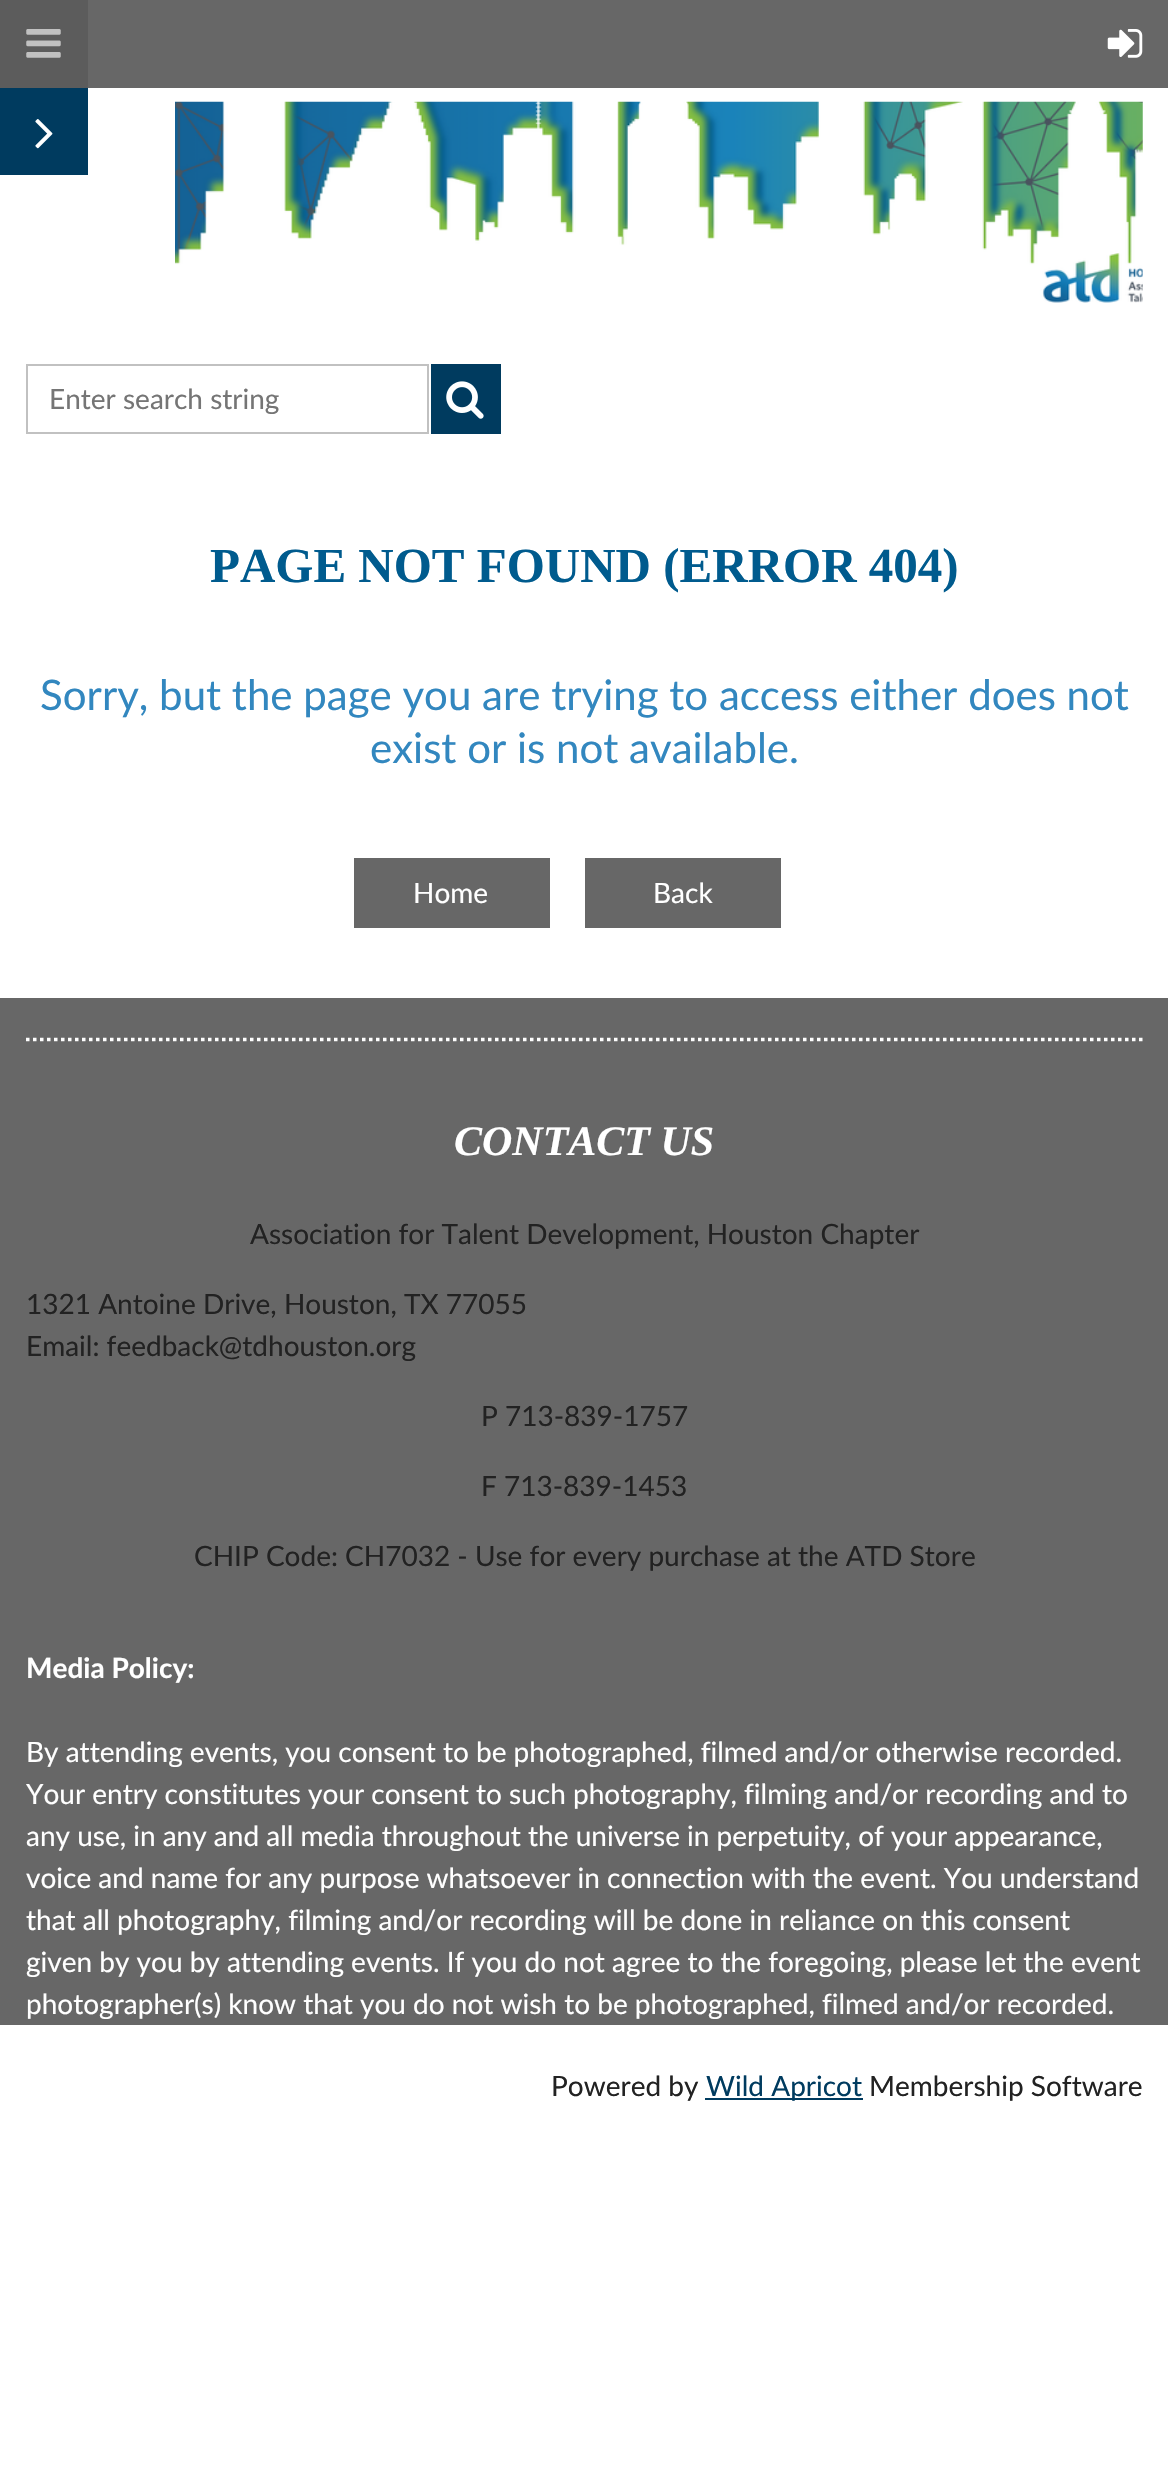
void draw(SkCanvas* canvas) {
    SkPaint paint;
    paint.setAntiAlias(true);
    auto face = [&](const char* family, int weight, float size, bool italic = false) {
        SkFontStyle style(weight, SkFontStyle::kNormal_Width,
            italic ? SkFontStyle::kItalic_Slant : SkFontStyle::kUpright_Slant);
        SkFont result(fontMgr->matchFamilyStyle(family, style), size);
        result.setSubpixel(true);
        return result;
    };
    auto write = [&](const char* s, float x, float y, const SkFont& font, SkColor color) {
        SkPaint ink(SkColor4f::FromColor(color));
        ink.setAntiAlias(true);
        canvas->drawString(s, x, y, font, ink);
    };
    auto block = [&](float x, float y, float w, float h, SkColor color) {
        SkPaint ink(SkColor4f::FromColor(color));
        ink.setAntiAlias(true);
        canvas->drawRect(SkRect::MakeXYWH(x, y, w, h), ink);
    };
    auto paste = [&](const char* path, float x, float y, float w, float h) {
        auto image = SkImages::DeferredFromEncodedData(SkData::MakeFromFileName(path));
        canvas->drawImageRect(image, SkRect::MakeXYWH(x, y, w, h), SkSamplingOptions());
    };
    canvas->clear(SK_ColorWHITE);
    block(0, 88, 88, 87, SkColorSetRGB(0, 59, 95));
    paste("pic1.png", 35, 119, 18, 30);
    block(88, 0, 1080, 88, SkColorSetRGB(103, 103, 103));
    block(0, 0, 88, 88, SkColorSetRGB(92, 92, 92));
    paste("pic2.png", 26, 29, 35, 29);
    paste("pic3.png", 1107, 29, 36, 29);
    paste("pic4.png", 175, 101, 968, 202);
    paint.setStyle(SkPaint::kStroke_Style);
    paint.setStrokeWidth(2);
    paint.setColor(SkColorSetRGB(193, 193, 193));
    canvas->drawRect(SkRect::MakeXYWH(27, 365, 401, 68), paint);
    auto kFont1 = face("Lato", 400, 28);
    write("Enter search string", 49, 409, kFont1, SkColorSetRGB(117, 117, 117));
    block(431, 364, 70, 70, SkColorSetRGB(0, 59, 95));
    paste("pic5.png", 446, 381, 38, 38);
    auto kFont2 = face("Liberation Serif", 700, 49);
    write("PAGE NOT FOUND (ERROR 404)", 210, 582, kFont2, SkColorSetRGB(0, 91, 142));
    auto kFont3 = face("Lato", 400, 42);
    write("Sorry, but the page you are trying to access either does not", 40, 710, kFont3, SkColorSetRGB(50, 135, 191));
    write("exist or is not available.", 370, 763, kFont3, SkColorSetRGB(50, 135, 191));
    block(354, 858, 196, 70, SkColorSetRGB(103, 103, 103));
    write("Home", 413, 903, kFont1, SK_ColorWHITE);
    block(585, 858, 196, 70, SkColorSetRGB(103, 103, 103));
    write("Back", 653, 903, kFont1, SK_ColorWHITE);
    block(0, 998, 1168, 1027, SkColorSetRGB(103, 103, 103));
    paint.setStrokeWidth(3.5f);
    paint.setColor(SK_ColorWHITE);
    paint.setPathEffect(SkDashPathEffect::Make({{3.5f, 3.5f}}, 0));
    canvas->drawPath(SkPathBuilder().moveTo(26, 1039.5f).lineTo(1143, 1039.5f).detach(), paint);
    paint.setPathEffect(nullptr);
    auto kFont4 = face("Liberation Serif", 700, 42, true);
    write("CONTACT US", 454, 1155, kFont4, SK_ColorWHITE);
    write("Association for Talent Development, Houston Chapter", 250, 1244, kFont1, SkColorSetRGB(34, 34, 34));
    write("1321 Antoine Drive, Houston, TX 77055", 26, 1314, kFont1, SkColorSetRGB(34, 34, 34));
    write("Email: feedback@tdhouston.org", 26, 1356, kFont1, SkColorSetRGB(34, 34, 34));
    write("P 713-839-1757", 481, 1426, kFont1, SkColorSetRGB(34, 34, 34));
    write("F 713-839-1453", 481, 1496, kFont1, SkColorSetRGB(34, 34, 34));
    write("CHIP Code: CH7032 - Use for every purchase at the ATD Store", 194, 1566, kFont1, SkColorSetRGB(34, 34, 34));
    auto kFont5 = face("Lato", 700, 28);
    write("Media Policy:", 26, 1678, kFont5, SK_ColorWHITE);
    write("By attending events, you consent to be photographed, filmed and/or otherwise recorded.", 26, 1762, kFont1, SK_ColorWHITE);
    write("Your entry constitutes your consent to such photography, filming and/or recording and to", 26, 1804, kFont1, SK_ColorWHITE);
    write("any use, in any and all media throughout the universe in perpetuity, of your appearance,", 26, 1846, kFont1, SK_ColorWHITE);
    write("voice and name for any purpose whatsoever in connection with the event. You understand", 26, 1888, kFont1, SK_ColorWHITE);
    write("that all photography, filming and/or recording will be done in reliance on this consent", 26, 1930, kFont1, SK_ColorWHITE);
    write("given by you by attending events. If you do not agree to the foregoing, please let the event", 26, 1972, kFont1, SK_ColorWHITE);
    write("photographer(s) know that you do not wish to be photographed, filmed and/or recorded.", 26, 2014, kFont1, SK_ColorWHITE);
    write("Powered by", 551, 2096, kFont1, SkColorSetRGB(34, 34, 34));
    block(705, 2098, 158, 2, SkColorSetRGB(0, 59, 95));
    write("Wild Apricot", 706, 2096, kFont1, SkColorSetRGB(0, 59, 95));
    write("Membership Software", 869, 2096, kFont1, SkColorSetRGB(34, 34, 34));
}
